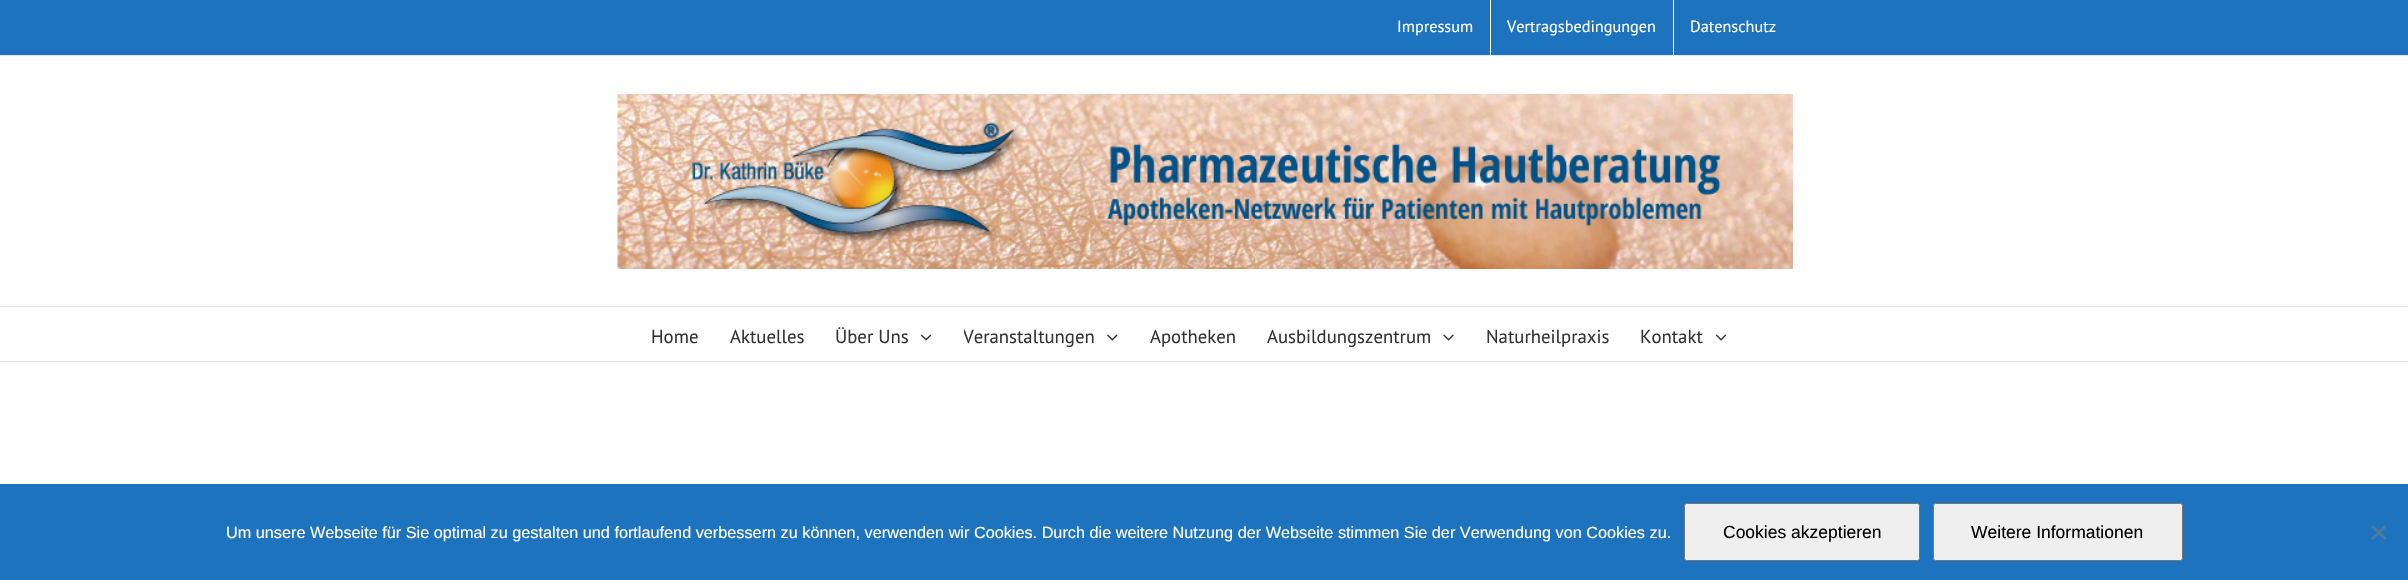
void draw(SkCanvas* canvas) {
    SkPaint paint;
    paint.setAntiAlias(true);
    auto face = [&](const char* family, int weight, float size, bool italic = false) {
        SkFontStyle style(weight, SkFontStyle::kNormal_Width,
            italic ? SkFontStyle::kItalic_Slant : SkFontStyle::kUpright_Slant);
        SkFont result(fontMgr->matchFamilyStyle(family, style), size);
        result.setSubpixel(true);
        return result;
    };
    auto write = [&](const char* s, float x, float y, const SkFont& font, SkColor color) {
        SkPaint ink(SkColor4f::FromColor(color));
        ink.setAntiAlias(true);
        canvas->drawString(s, x, y, font, ink);
    };
    auto block = [&](float x, float y, float w, float h, SkColor color) {
        SkPaint ink(SkColor4f::FromColor(color));
        ink.setAntiAlias(true);
        canvas->drawRect(SkRect::MakeXYWH(x, y, w, h), ink);
    };
    auto paste = [&](const char* path, float x, float y, float w, float h) {
        auto image = SkImages::DeferredFromEncodedData(SkData::MakeFromFileName(path));
        canvas->drawImageRect(image, SkRect::MakeXYWH(x, y, w, h), SkSamplingOptions());
    };
    canvas->clear(SK_ColorWHITE);
    block(0, 0, 2408, 55, SkColorSetRGB(30, 115, 190));
    block(0, 55, 2408, 1, SkColorSetRGB(229, 229, 229));
    auto kFont1 = face("PT Sans", 400, 16.25f);
    write("Impressum", 1397, 32, kFont1, SK_ColorWHITE);
    block(1490, 0, 1, 55, SK_ColorWHITE);
    write("Vertragsbedingungen", 1507, 32, kFont1, SK_ColorWHITE);
    block(1673, 0, 1, 55, SK_ColorWHITE);
    write("Datenschutz", 1690, 32, kFont1, SK_ColorWHITE);
    block(0, 306, 2408, 1, SkColorSetRGB(229, 229, 229));
    paste("pic1.png", 617, 94, 1176, 175);
    block(0, 361, 2408, 1, SkColorSetRGB(229, 229, 229));
    auto kFont2 = face("PT Sans", 400, 18.75f);
    write("Home", 651, 343, kFont2, SkColorSetRGB(51, 51, 51));
    write("Aktuelles", 730, 343, kFont2, SkColorSetRGB(51, 51, 51));
    write("Über Uns", 835, 343, kFont2, SkColorSetRGB(51, 51, 51));
    paste("pic2.png", 920, 334, 12, 7);
    canvas->save();
    canvas->clipRect(SkRect::MakeXYWH(964, 308, 186, 53));
    write("Veranstaltungen", 963, 343, kFont2, SkColorSetRGB(51, 51, 51));
    canvas->restore();
    paste("pic3.png", 1107, 334, 11, 7);
    write("Apotheken", 1150, 343, kFont2, SkColorSetRGB(51, 51, 51));
    write("Ausbildungszentrum", 1267, 343, kFont2, SkColorSetRGB(51, 51, 51));
    paste("pic4.png", 1443, 334, 11, 7);
    write("Naturheilpraxis", 1486, 343, kFont2, SkColorSetRGB(51, 51, 51));
    write("Kontakt", 1640, 343, kFont2, SkColorSetRGB(51, 51, 51));
    paste("pic2.png", 1715, 334, 12, 7);
    block(0, 484, 2408, 96, SkColorSetRGB(30, 115, 190));
    auto kFont3 = face("Liberation Sans", 400, 16.25f);
    write("Um unsere Webseite für Sie optimal zu gestalten und fortlaufend verbessern zu können, verwenden wir Cookies. Durch die weitere Nutzung der Webseite stimmen Sie der Verwendung von Cookies zu.", 226, 538, kFont3, SK_ColorWHITE);
    paint.setColor(SkColorSetRGB(239, 239, 239));
    canvas->drawRoundRect(SkRect::MakeXYWH(1684.5f, 503.5f, 235, 57), 2, 2, paint);
    paint.setStyle(SkPaint::kStroke_Style);
    paint.setStrokeWidth(1);
    paint.setColor(SkColorSetRGB(118, 118, 118));
    canvas->drawRoundRect(SkRect::MakeXYWH(1684.5f, 503.5f, 235, 57), 2, 2, paint);
    auto kFont4 = face("Liberation Sans", 400, 17.5f);
    write("Cookies akzeptieren", 1723, 538, kFont4, SK_ColorBLACK);
    paint.setStyle(SkPaint::kFill_Style);
    paint.setColor(SkColorSetRGB(239, 239, 239));
    canvas->drawRoundRect(SkRect::MakeXYWH(1933.5f, 503.5f, 249, 57), 2, 2, paint);
    paint.setStyle(SkPaint::kStroke_Style);
    paint.setColor(SkColorSetRGB(118, 118, 118));
    canvas->drawRoundRect(SkRect::MakeXYWH(1933.5f, 503.5f, 249, 57), 2, 2, paint);
    write("Weitere Informationen", 1971, 538, kFont4, SK_ColorBLACK);
    paint.setStyle(SkPaint::kFill_Style);
    paint.setColor(SkColorSetRGB(79, 122, 159));
    canvas->drawPath(SkPathBuilder().moveTo(2384.5f, 525).lineTo(2386.5f, 527).lineTo(2373, 540).lineTo(2371, 538).close().detach(), paint);
    canvas->drawPath(SkPathBuilder().moveTo(2371, 527).lineTo(2373, 525).lineTo(2386.5f, 538).lineTo(2384.5f, 540).close().detach(), paint);
}
